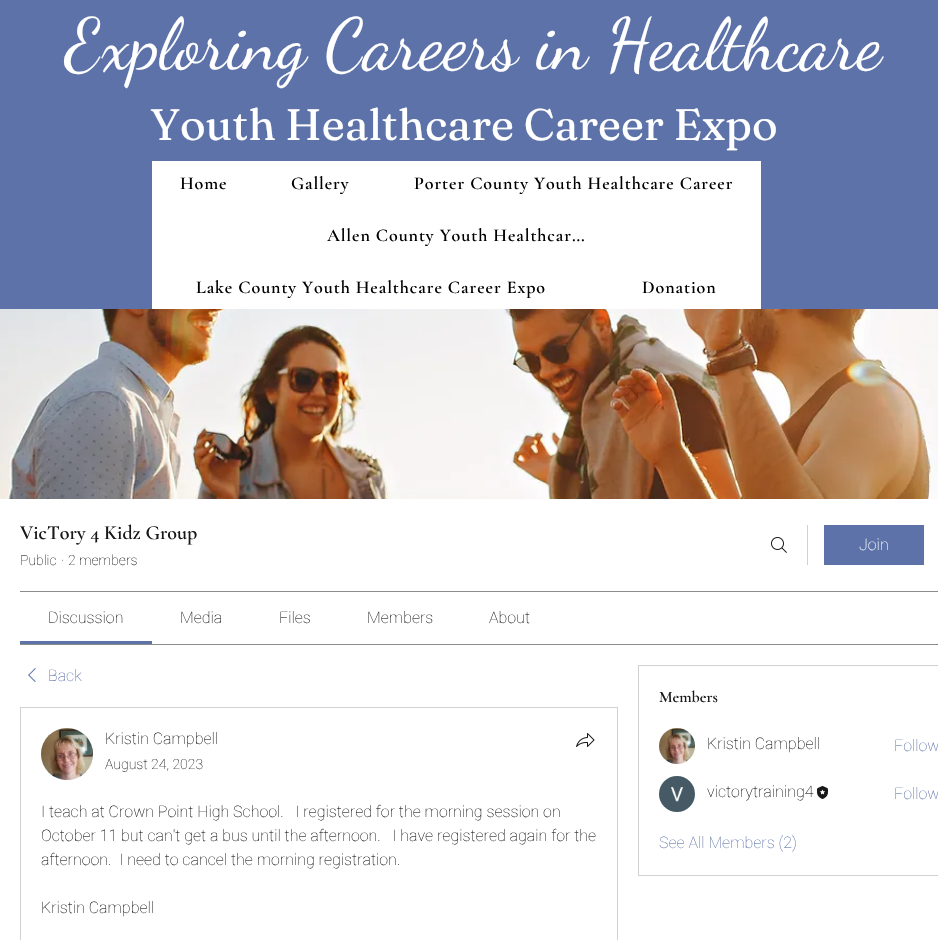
void draw(SkCanvas* canvas) {
    SkPaint paint;
    paint.setAntiAlias(true);
    auto face = [&](const char* family, int weight, float size, bool italic = false) {
        SkFontStyle style(weight, SkFontStyle::kNormal_Width,
            italic ? SkFontStyle::kItalic_Slant : SkFontStyle::kUpright_Slant);
        SkFont result(fontMgr->matchFamilyStyle(family, style), size);
        result.setSubpixel(true);
        return result;
    };
    auto write = [&](const char* s, float x, float y, const SkFont& font, SkColor color) {
        SkPaint ink(SkColor4f::FromColor(color));
        ink.setAntiAlias(true);
        canvas->drawString(s, x, y, font, ink);
    };
    auto writeSpaced = [&](const char* s, float x, float y, const SkFont& font, const SkPaint& ink, float letter, float word) {
        std::vector<SkGlyphID> glyphs(font.countText(s, strlen(s), SkTextEncoding::kUTF8));
        std::vector<float> xs(glyphs.size());
        font.textToGlyphs(s, strlen(s), SkTextEncoding::kUTF8, glyphs);
        font.getXPos(glyphs, xs, x);
        float extra = 0;
        for (size_t i = 0; i < glyphs.size(); i++) {
            xs[i] += extra;
            extra += letter + word * (glyphs[i] == font.unicharToGlyph(' '));
        }
        canvas->drawTextBlob(SkTextBlob::MakeFromPosHGlyphs(glyphs, xs, y, font), 0, 0, ink);
    };
    auto block = [&](float x, float y, float w, float h, SkColor color) {
        SkPaint ink(SkColor4f::FromColor(color));
        ink.setAntiAlias(true);
        canvas->drawRect(SkRect::MakeXYWH(x, y, w, h), ink);
    };
    auto paste = [&](const char* path, float x, float y, float w, float h) {
        auto image = SkImages::DeferredFromEncodedData(SkData::MakeFromFileName(path));
        canvas->drawImageRect(image, SkRect::MakeXYWH(x, y, w, h), SkSamplingOptions());
    };
    canvas->clear(SK_ColorWHITE);
    block(0, 0, 938, 309, SkColorSetRGB(92, 114, 168));
    auto kFont1 = face("Dancing Script", 400, 72);
    write("Exploring Careers in Healthcare", 65, 68, kFont1, SK_ColorWHITE);
    auto kFont2 = face("Fraunces", 400, 44);
    write("Youth Healthcare Career Expo", 150, 140, kFont2, SK_ColorWHITE);
    block(152, 161, 609, 148, SK_ColorWHITE);
    auto kFont3 = face("Cormorant Garamond", 600, 18);
    paint.setColor(SK_ColorBLACK);
    writeSpaced("Home", 180, 189, kFont3, paint, 0.9f, 0);
    writeSpaced("Gallery", 291, 189, kFont3, paint, 0.9f, 0);
    writeSpaced("Porter County Youth Healthcare Career", 414, 189, kFont3, paint, 0.9f, 0);
    writeSpaced("Allen County Youth Healthcar...", 327, 241, kFont3, paint, 0.9f, 0);
    writeSpaced("Lake County Youth Healthcare Career Expo", 196, 293, kFont3, paint, 0.9f, 0);
    writeSpaced("Donation", 642, 293, kFont3, paint, 0.9f, 0);
    paste("pic1.png", 0, 309, 938, 190);
    auto kFont4 = face("Cormorant Garamond", 600, 20);
    write("VicTory 4 Kidz Group", 20, 539, kFont4, SkColorSetRGB(24, 24, 24));
    auto kFont5 = face("Roboto", 100, 14);
    write("Public", 20, 565, kFont5, SkColorSetRGB(24, 24, 24));
    write("·", 61, 565, kFont5, SkColorSetRGB(24, 24, 24));
    write("2 members", 68, 565, kFont5, SkColorSetRGB(24, 24, 24));
    paste("pic2.png", 771, 537, 16, 16);
    block(807, 525, 1, 40, SkColorSetRGB(209, 209, 209));
    block(824, 525, 100, 40, SkColorSetRGB(92, 114, 168));
    auto kFont6 = face("Roboto", 100, 16);
    write("Join", 859, 550, kFont6, SK_ColorWHITE);
    block(20, 591, 918, 1, SkColorSetRGB(140, 140, 140));
    block(20, 644, 918, 1, SkColorSetRGB(140, 140, 140));
    block(20, 641, 132, 3, SkColorSetRGB(92, 114, 168));
    write("Discussion", 48, 623, kFont6, SkColorSetRGB(24, 24, 24));
    write("Media", 180, 623, kFont6, SkColorSetRGB(24, 24, 24));
    write("Files", 279, 623, kFont6, SkColorSetRGB(24, 24, 24));
    write("Members", 367, 623, kFont6, SkColorSetRGB(24, 24, 24));
    write("About", 489, 623, kFont6, SkColorSetRGB(24, 24, 24));
    paste("pic3.png", 28, 668, 8, 14);
    write("Back", 48, 681, kFont6, SkColorSetRGB(92, 114, 168));
    paint.setStyle(SkPaint::kStroke_Style);
    paint.setStrokeWidth(1);
    paint.setColor(SkColorSetRGB(209, 209, 209));
    canvas->drawRect(SkRect::MakeXYWH(20.5f, 707.5f, 597, 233), paint);
    paint.setStyle(SkPaint::kFill_Style);
    paint.setColor(SkColorSetRGB(216, 216, 216));
    canvas->drawCircle(67, 754, 26, paint);
    paste("pic4.png", 41, 728, 52, 52);
    write("Kristin Campbell", 105, 744, kFont6, SkColorSetRGB(24, 24, 24));
    write("August 24, 2023", 105, 769, kFont5, SkColorSetRGB(24, 24, 24));
    paste("pic5.png", 576, 733, 19, 14);
    write("I teach at Crown Point High School.   I registered for the morning session on", 41, 817, kFont6, SkColorSetRGB(24, 24, 24));
    write("October 11 but can't get a bus until the afternoon.   I have registered again for the", 41, 841, kFont6, SkColorSetRGB(24, 24, 24));
    write("afternoon.  I need to cancel the morning registration.", 41, 865, kFont6, SkColorSetRGB(24, 24, 24));
    write("Kristin Campbell", 41, 913, kFont6, SkColorSetRGB(24, 24, 24));
    paint.setStyle(SkPaint::kStroke_Style);
    paint.setColor(SkColorSetRGB(209, 209, 209));
    canvas->drawRect(SkRect::MakeXYWH(638.5f, 665.5f, 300, 210), paint);
    auto kFont7 = face("Cormorant Garamond", 600, 16);
    write("Members", 659, 702, kFont7, SkColorSetRGB(24, 24, 24));
    paste("pic6.png", 659, 728, 36, 36);
    write("Kristin Campbell", 707, 749, kFont6, SkColorSetRGB(24, 24, 24));
    write("Follow", 894, 751, kFont6, SkColorSetRGB(92, 114, 168));
    paste("pic7.png", 659, 776, 36, 36);
    write("victorytraining4", 707, 797, kFont6, SkColorSetRGB(24, 24, 24));
    paste("pic8.png", 817, 786, 11, 13);
    write("Follow", 894, 799, kFont6, SkColorSetRGB(92, 114, 168));
    write("See All Members (2)", 659, 848, kFont6, SkColorSetRGB(92, 114, 168));
}
